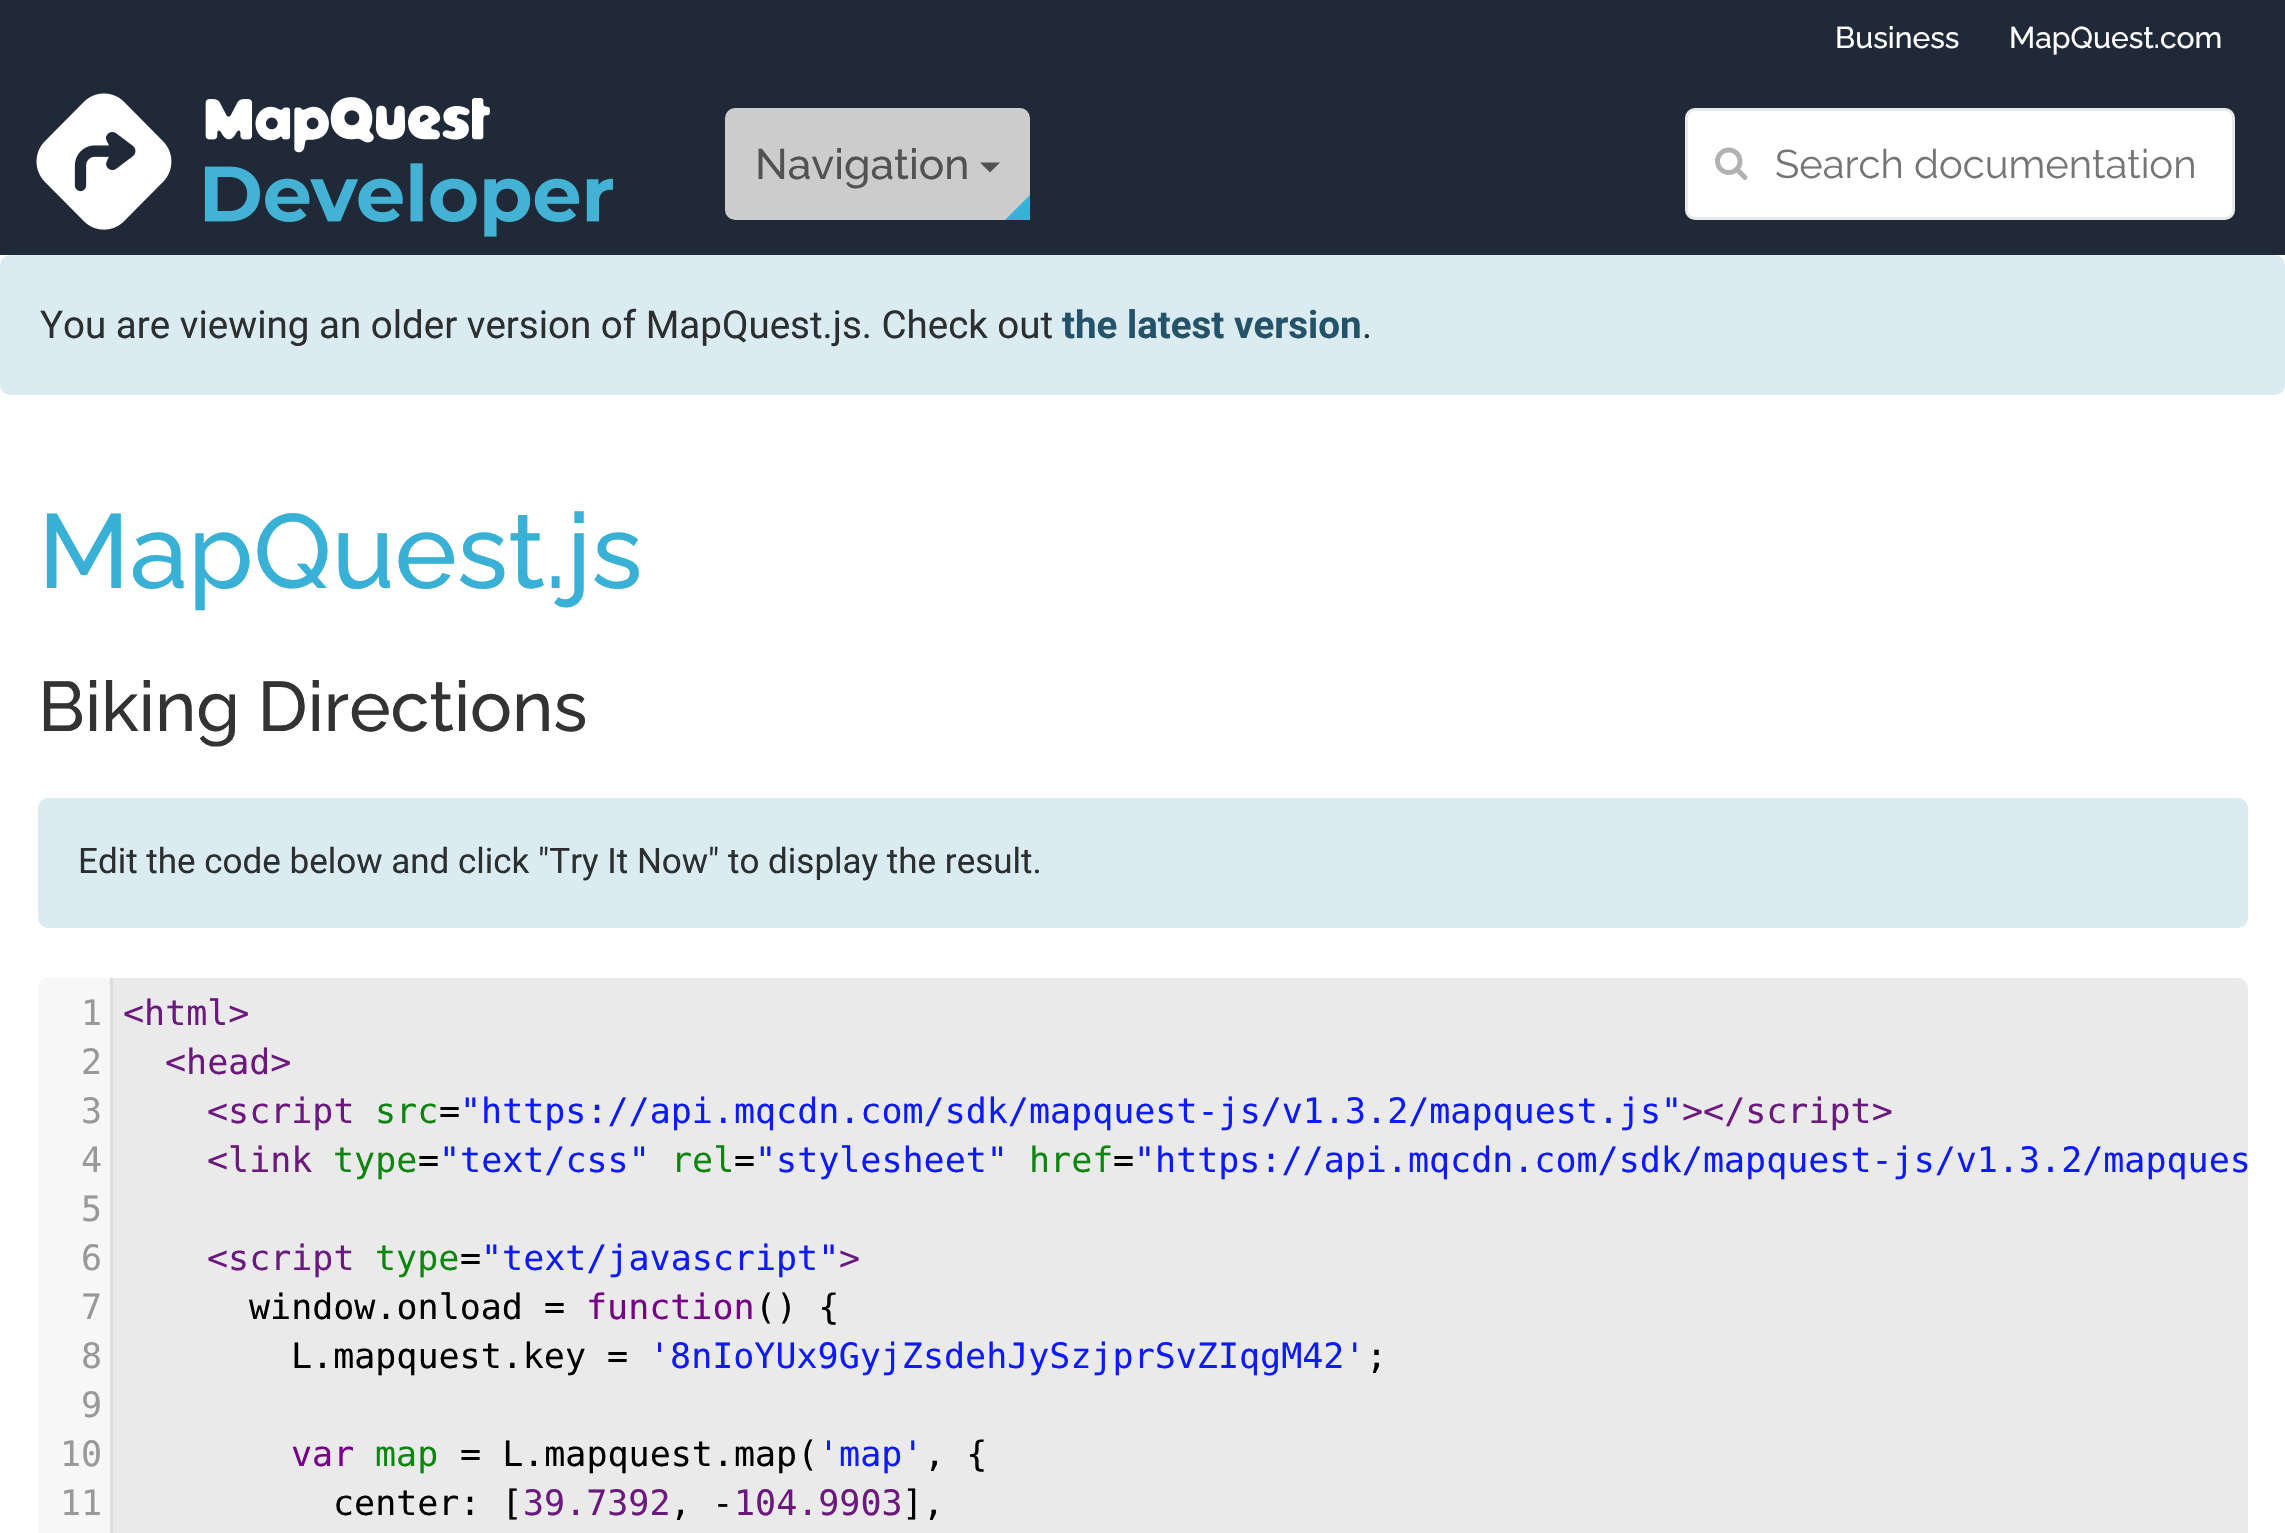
void draw(SkCanvas* canvas) {
    SkPaint paint;
    paint.setAntiAlias(true);
    auto face = [&](const char* family, int weight, float size, bool italic = false) {
        SkFontStyle style(weight, SkFontStyle::kNormal_Width,
            italic ? SkFontStyle::kItalic_Slant : SkFontStyle::kUpright_Slant);
        SkFont result(fontMgr->matchFamilyStyle(family, style), size);
        result.setSubpixel(true);
        return result;
    };
    auto write = [&](const char* s, float x, float y, const SkFont& font, SkColor color) {
        SkPaint ink(SkColor4f::FromColor(color));
        ink.setAntiAlias(true);
        canvas->drawString(s, x, y, font, ink);
    };
    auto block = [&](float x, float y, float w, float h, SkColor color) {
        SkPaint ink(SkColor4f::FromColor(color));
        ink.setAntiAlias(true);
        canvas->drawRect(SkRect::MakeXYWH(x, y, w, h), ink);
    };
    auto card = [&](float x, float y, float w, float h, float radius, SkColor color) {
        SkPaint ink(SkColor4f::FromColor(color));
        ink.setAntiAlias(true);
        canvas->drawRoundRect(SkRect::MakeXYWH(x, y, w, h), radius, radius, ink);
    };
    auto paste = [&](const char* path, float x, float y, float w, float h) {
        auto image = SkImages::DeferredFromEncodedData(SkData::MakeFromFileName(path));
        canvas->drawImageRect(image, SkRect::MakeXYWH(x, y, w, h), SkSamplingOptions());
    };
    canvas->clear(SK_ColorWHITE);
    block(0, 0, 2285, 255, SkColorSetRGB(31, 41, 55));
    auto kFont1 = face("Raleway", 500, 30);
    write("Business", 1835, 48, kFont1, SK_ColorWHITE);
    write("MapQuest.com", 2009, 48, kFont1, SK_ColorWHITE);
    paste("pic1.png", 36, 93, 577, 144);
    card(725, 108, 305, 112, 10, SkColorSetRGB(204, 204, 204));
    auto kFont2 = face("Raleway", 500, 42.5f);
    write("Navigation", 755, 179, kFont2, SkColorSetRGB(82, 82, 82));
    paint.setColor(SkColorSetRGB(82, 82, 82));
    canvas->drawPath(SkPathBuilder().moveTo(980, 162.5f).lineTo(1000, 162.5f).lineTo(990, 172.5f).close().detach(), paint);
    paint.setColor(SkColorSetRGB(57, 176, 213));
    canvas->drawPath(SkPathBuilder().moveTo(1030, 220).lineTo(1005, 220).lineTo(1030, 195).close().detach(), paint);
    paint.setColor(SK_ColorWHITE);
    canvas->drawRoundRect(SkRect::MakeXYWH(1686.5f, 109.5f, 547, 109), 8.5f, 8.5f, paint);
    paint.setStyle(SkPaint::kStroke_Style);
    paint.setStrokeWidth(3);
    paint.setColor(SkColorSetRGB(234, 234, 234));
    canvas->drawRoundRect(SkRect::MakeXYWH(1686.5f, 109.5f, 547, 109), 8.5f, 8.5f, paint);
    paste("pic2.png", 1715, 147, 33, 33);
    auto kFont3 = face("Raleway", 400, 40);
    write("Search documentation", 1775, 178, kFont3, SkColorSetRGB(117, 117, 117));
    card(0, 255, 2285, 140, 10, SkColorSetRGB(219, 235, 242));
    auto kFont4 = face("Roboto", 400, 38.5f);
    write("You are viewing an older version of MapQuest.js. Check out", 40, 338, kFont4, SkColorSetRGB(44, 47, 48));
    auto kFont5 = face("Roboto", 700, 38.5f);
    write("the latest version", 1062, 338, kFont5, SkColorSetRGB(36, 82, 105));
    write(".", 1362, 338, kFont4, SkColorSetRGB(44, 47, 48));
    auto kFont6 = face("Raleway", 500, 105);
    write("MapQuest.js", 38, 588, kFont6, SkColorSetRGB(57, 176, 213));
    auto kFont7 = face("Raleway", 500, 70);
    write("Biking Directions", 38, 731, kFont7, SkColorSetRGB(51, 51, 51));
    card(38, 798, 2210, 130, 10, SkColorSetRGB(219, 235, 242));
    auto kFont8 = face("Roboto", 400, 35);
    write("Edit the code below and click \"Try It Now\" to display the result.", 78, 873, kFont8, SkColorSetRGB(44, 47, 48));
    card(38, 978, 2210, 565, 10, SkColorSetRGB(234, 234, 234));
    paint.setStyle(SkPaint::kFill_Style);
    paint.setColor(SkColorSetRGB(247, 247, 247));
    canvas->drawPath(SkPathBuilder().moveTo(48, 978).lineTo(113, 978).lineTo(113, 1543).lineTo(48, 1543).cubicTo(42.5f, 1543, 38, 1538.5f, 38, 1533).lineTo(38, 988).cubicTo(38, 982.5f, 42.5f, 978, 48, 978).close().detach(), paint);
    block(110, 978, 3, 555, SkColorSetRGB(221, 221, 221));
    auto kFont9 = face("DejaVu Sans Mono", 400, 35);
    write("1", 81, 1025, kFont9, SkColorSetRGB(153, 153, 153));
    write("<html>", 123, 1025, kFont9, SkColorSetRGB(108, 25, 127));
    write("2", 81, 1074, kFont9, SkColorSetRGB(153, 153, 153));
    write("<head>", 165, 1074, kFont9, SkColorSetRGB(108, 25, 127));
    write("3", 81, 1123, kFont9, SkColorSetRGB(153, 153, 153));
    write("<script", 207, 1123, kFont9, SkColorSetRGB(108, 25, 127));
    write("src", 375, 1123, kFont9, SkColorSetRGB(14, 133, 15));
    write("=", 439, 1123, kFont9, SK_ColorBLACK);
    write("\"https://api.mqcdn.com/sdk/mapquest-js/v1.3.2/mapquest.js\"", 460, 1123, kFont9, SkColorSetRGB(13, 26, 254));
    write("></script>", 1682, 1123, kFont9, SkColorSetRGB(108, 25, 127));
    write("4", 81, 1172, kFont9, SkColorSetRGB(153, 153, 153));
    write("<link", 207, 1172, kFont9, SkColorSetRGB(108, 25, 127));
    write("type", 333, 1172, kFont9, SkColorSetRGB(14, 133, 15));
    write("=", 418, 1172, kFont9, SK_ColorBLACK);
    write("\"text/css\"", 439, 1172, kFont9, SkColorSetRGB(13, 26, 254));
    write("rel", 671, 1172, kFont9, SkColorSetRGB(14, 133, 15));
    write("=", 734, 1172, kFont9, SK_ColorBLACK);
    write("\"stylesheet\"", 755, 1172, kFont9, SkColorSetRGB(13, 26, 254));
    write("href", 1029, 1172, kFont9, SkColorSetRGB(14, 133, 15));
    write("=", 1113, 1172, kFont9, SK_ColorBLACK);
    write("\"https://api.mqcdn.com/sdk/mapquest-js/v1.3.2/mapques", 1134, 1172, kFont9, SkColorSetRGB(13, 26, 254));
    write("5", 81, 1221, kFont9, SkColorSetRGB(153, 153, 153));
    write("6", 81, 1270, kFont9, SkColorSetRGB(153, 153, 153));
    write("<script", 207, 1270, kFont9, SkColorSetRGB(108, 25, 127));
    write("type", 375, 1270, kFont9, SkColorSetRGB(14, 133, 15));
    write("=", 460, 1270, kFont9, SK_ColorBLACK);
    write("\"text/javascript\"", 481, 1270, kFont9, SkColorSetRGB(13, 26, 254));
    write(">", 839, 1270, kFont9, SkColorSetRGB(108, 25, 127));
    write("7", 81, 1319, kFont9, SkColorSetRGB(153, 153, 153));
    write("window.onload =", 249, 1319, kFont9, SK_ColorBLACK);
    write("function", 586, 1319, kFont9, SkColorSetRGB(119, 0, 136));
    write("() {", 755, 1319, kFont9, SK_ColorBLACK);
    write("8", 81, 1368, kFont9, SkColorSetRGB(153, 153, 153));
    write("L.mapquest.key =", 291, 1368, kFont9, SK_ColorBLACK);
    write("'8nIoYUx9GyjZsdehJySzjprSvZIqgM42'", 649, 1368, kFont9, SkColorSetRGB(13, 26, 254));
    write(";", 1366, 1368, kFont9, SK_ColorBLACK);
    write("9", 81, 1417, kFont9, SkColorSetRGB(153, 153, 153));
    write("10", 60, 1466, kFont9, SkColorSetRGB(153, 153, 153));
    write("var", 291, 1466, kFont9, SkColorSetRGB(119, 0, 136));
    write("map", 375, 1466, kFont9, SkColorSetRGB(14, 133, 15));
    write("= L.mapquest.map(", 460, 1466, kFont9, SK_ColorBLACK);
    write("'map'", 818, 1466, kFont9, SkColorSetRGB(13, 26, 254));
    write(", {", 924, 1466, kFont9, SK_ColorBLACK);
    write("11", 60, 1515, kFont9, SkColorSetRGB(153, 153, 153));
    write("center: [", 333, 1515, kFont9, SK_ColorBLACK);
    write("39.7392", 523, 1515, kFont9, SkColorSetRGB(108, 25, 127));
    write(", -", 670, 1515, kFont9, SK_ColorBLACK);
    write("104.9903", 734, 1515, kFont9, SkColorSetRGB(108, 25, 127));
    write("],", 902, 1515, kFont9, SK_ColorBLACK);
}
